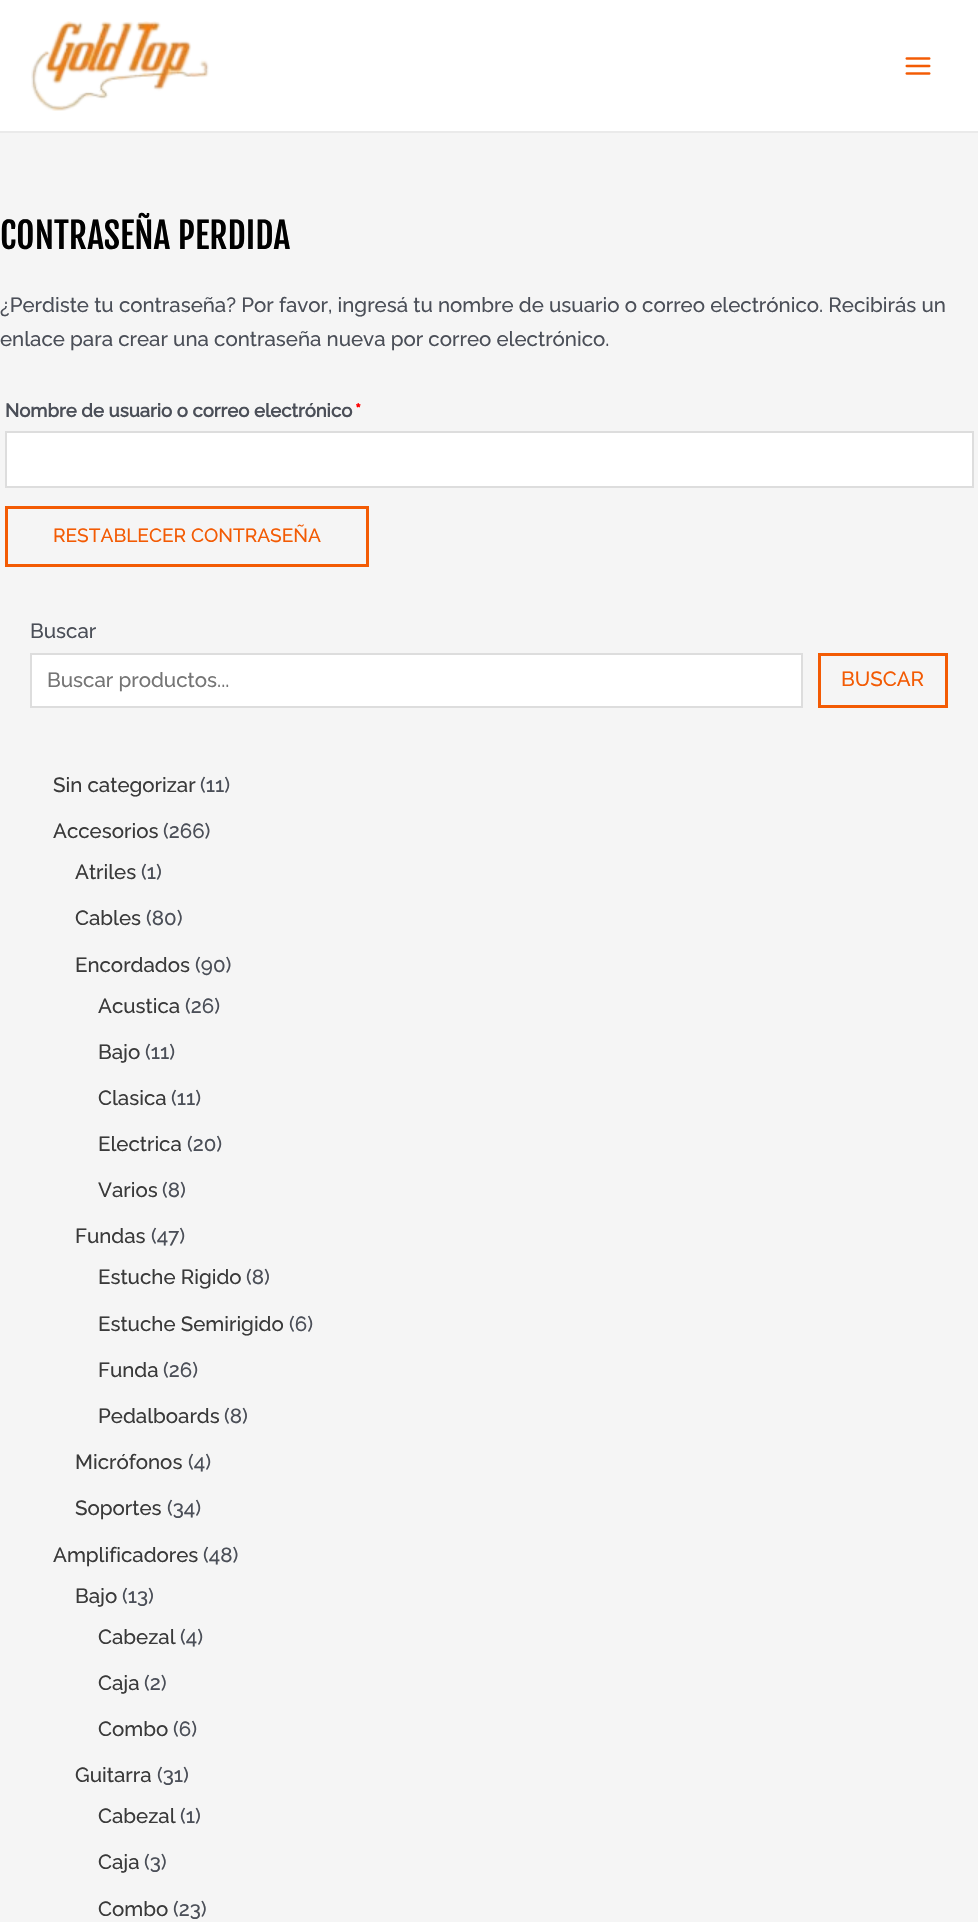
void draw(SkCanvas* canvas) {
    SkPaint paint;
    paint.setAntiAlias(true);
    auto face = [&](const char* family, int weight, float size, bool italic = false) {
        SkFontStyle style(weight, SkFontStyle::kNormal_Width,
            italic ? SkFontStyle::kItalic_Slant : SkFontStyle::kUpright_Slant);
        SkFont result(fontMgr->matchFamilyStyle(family, style), size);
        result.setSubpixel(true);
        return result;
    };
    auto write = [&](const char* s, float x, float y, const SkFont& font, SkColor color) {
        SkPaint ink(SkColor4f::FromColor(color));
        ink.setAntiAlias(true);
        canvas->drawString(s, x, y, font, ink);
    };
    auto block = [&](float x, float y, float w, float h, SkColor color) {
        SkPaint ink(SkColor4f::FromColor(color));
        ink.setAntiAlias(true);
        canvas->drawRect(SkRect::MakeXYWH(x, y, w, h), ink);
    };
    auto paste = [&](const char* path, float x, float y, float w, float h) {
        auto image = SkImages::DeferredFromEncodedData(SkData::MakeFromFileName(path));
        canvas->drawImageRect(image, SkRect::MakeXYWH(x, y, w, h), SkSamplingOptions());
    };
    canvas->clear(SkColorSetRGB(245, 245, 245));
    block(0, 0, 978, 131, SK_ColorWHITE);
    block(0, 131, 978, 2, SkColorSetRGB(234, 234, 234));
    paste("pic1.png", 31, 21, 178, 90);
    paste("pic2.png", 905, 57, 26, 18);
    auto kFont1 = face("Fjalla One", 400, 35.5f);
    write("CONTRASEÑA PERDIDA", 0, 249, kFont1, SK_ColorBLACK);
    auto kFont2 = face("Raleway", 100, 20.5f);
    write("¿Perdiste tu contraseña? Por favor, ingresá tu nombre de usuario o correo electrónico. Recibirás un", 0, 312, kFont2, SkColorSetRGB(75, 79, 88));
    write("enlace para crear una contraseña nueva por correo electrónico.", 0, 346, kFont2, SkColorSetRGB(75, 79, 88));
    auto kFont3 = face("Raleway", 700, 18.5f);
    write("Nombre de usuario o correo electrónico", 5, 417, kFont3, SkColorSetRGB(75, 79, 88));
    write("*", 355, 417, kFont3, SkColorSetRGB(255, 0, 0));
    paint.setColor(SK_ColorWHITE);
    canvas->drawRect(SkRect::MakeXYWH(6, 432, 967, 55), paint);
    paint.setStyle(SkPaint::kStroke_Style);
    paint.setStrokeWidth(2);
    paint.setColor(SkColorSetRGB(221, 221, 221));
    canvas->drawRect(SkRect::MakeXYWH(6, 432, 967, 55), paint);
    paint.setStrokeWidth(3);
    paint.setColor(SkColorSetRGB(243, 91, 4));
    canvas->drawRect(SkRect::MakeXYWH(6.5f, 507.5f, 361, 58), paint);
    auto kFont4 = face("Raleway", 100, 19.1f);
    write("RESTABLECER CONTRASEÑA", 53, 542, kFont4, SkColorSetRGB(243, 91, 4));
    write("Buscar", 30, 638, kFont2, SkColorSetRGB(75, 79, 88));
    paint.setStyle(SkPaint::kFill_Style);
    paint.setColor(SK_ColorWHITE);
    canvas->drawRect(SkRect::MakeXYWH(31, 654, 771, 53), paint);
    paint.setStyle(SkPaint::kStroke_Style);
    paint.setStrokeWidth(2);
    paint.setColor(SkColorSetRGB(221, 221, 221));
    canvas->drawRect(SkRect::MakeXYWH(31, 654, 771, 53), paint);
    write("Buscar productos...", 47, 687, kFont2, SkColorSetRGB(117, 117, 117));
    paint.setStrokeWidth(3);
    paint.setColor(SkColorSetRGB(243, 91, 4));
    canvas->drawRect(SkRect::MakeXYWH(819.5f, 654.5f, 127, 52), paint);
    write("BUSCAR", 841, 686, kFont2, SkColorSetRGB(243, 91, 4));
    write("Sin categorizar", 53, 792, kFont2, SkColorSetRGB(58, 58, 58));
    write("(11)", 200, 792, kFont2, SkColorSetRGB(75, 79, 88));
    write("Accesorios", 53, 838, kFont2, SkColorSetRGB(58, 58, 58));
    write("(266)", 163, 838, kFont2, SkColorSetRGB(75, 79, 88));
    write("Atriles", 75, 879, kFont2, SkColorSetRGB(58, 58, 58));
    write("(1)", 141, 879, kFont2, SkColorSetRGB(75, 79, 88));
    write("Cables", 75, 925, kFont2, SkColorSetRGB(58, 58, 58));
    write("(80)", 146, 925, kFont2, SkColorSetRGB(75, 79, 88));
    write("Encordados", 75, 972, kFont2, SkColorSetRGB(58, 58, 58));
    write("(90)", 195, 972, kFont2, SkColorSetRGB(75, 79, 88));
    write("Acustica", 98, 1013, kFont2, SkColorSetRGB(58, 58, 58));
    write("(26)", 185, 1013, kFont2, SkColorSetRGB(75, 79, 88));
    write("Bajo", 98, 1059, kFont2, SkColorSetRGB(58, 58, 58));
    write("(11)", 145, 1059, kFont2, SkColorSetRGB(75, 79, 88));
    write("Clasica", 98, 1105, kFont2, SkColorSetRGB(58, 58, 58));
    write("(11)", 171, 1105, kFont2, SkColorSetRGB(75, 79, 88));
    write("Electrica", 98, 1151, kFont2, SkColorSetRGB(58, 58, 58));
    write("(20)", 187, 1151, kFont2, SkColorSetRGB(75, 79, 88));
    write("Varios", 98, 1197, kFont2, SkColorSetRGB(58, 58, 58));
    write("(8)", 162, 1197, kFont2, SkColorSetRGB(75, 79, 88));
    write("Fundas", 75, 1243, kFont2, SkColorSetRGB(58, 58, 58));
    write("(47)", 151, 1243, kFont2, SkColorSetRGB(75, 79, 88));
    write("Estuche Rigido", 98, 1284, kFont2, SkColorSetRGB(58, 58, 58));
    write("(8)", 246, 1284, kFont2, SkColorSetRGB(75, 79, 88));
    write("Estuche Semirigido", 98, 1331, kFont2, SkColorSetRGB(58, 58, 58));
    write("(6)", 289, 1331, kFont2, SkColorSetRGB(75, 79, 88));
    write("Funda", 98, 1377, kFont2, SkColorSetRGB(58, 58, 58));
    write("(26)", 163, 1377, kFont2, SkColorSetRGB(75, 79, 88));
    write("Pedalboards", 98, 1423, kFont2, SkColorSetRGB(58, 58, 58));
    write("(8)", 224, 1423, kFont2, SkColorSetRGB(75, 79, 88));
    write("Micrófonos", 75, 1469, kFont2, SkColorSetRGB(58, 58, 58));
    write("(4)", 188, 1469, kFont2, SkColorSetRGB(75, 79, 88));
    write("Soportes", 75, 1515, kFont2, SkColorSetRGB(58, 58, 58));
    write("(34)", 167, 1515, kFont2, SkColorSetRGB(75, 79, 88));
    write("Amplificadores", 53, 1562, kFont2, SkColorSetRGB(58, 58, 58));
    write("(48)", 203, 1562, kFont2, SkColorSetRGB(75, 79, 88));
    write("Bajo", 75, 1603, kFont2, SkColorSetRGB(58, 58, 58));
    write("(13)", 122, 1603, kFont2, SkColorSetRGB(75, 79, 88));
    write("Cabezal", 98, 1644, kFont2, SkColorSetRGB(58, 58, 58));
    write("(4)", 180, 1644, kFont2, SkColorSetRGB(75, 79, 88));
    write("Caja", 98, 1690, kFont2, SkColorSetRGB(58, 58, 58));
    write("(2)", 144, 1690, kFont2, SkColorSetRGB(75, 79, 88));
    write("Combo", 98, 1736, kFont2, SkColorSetRGB(58, 58, 58));
    write("(6)", 173, 1736, kFont2, SkColorSetRGB(75, 79, 88));
    write("Guitarra", 75, 1782, kFont2, SkColorSetRGB(58, 58, 58));
    write("(31)", 157, 1782, kFont2, SkColorSetRGB(75, 79, 88));
    write("Cabezal", 98, 1823, kFont2, SkColorSetRGB(58, 58, 58));
    write("(1)", 180, 1823, kFont2, SkColorSetRGB(75, 79, 88));
    write("Caja", 98, 1869, kFont2, SkColorSetRGB(58, 58, 58));
    write("(3)", 144, 1869, kFont2, SkColorSetRGB(75, 79, 88));
    write("Combo", 98, 1916, kFont2, SkColorSetRGB(58, 58, 58));
    write("(23)", 173, 1916, kFont2, SkColorSetRGB(75, 79, 88));
}
